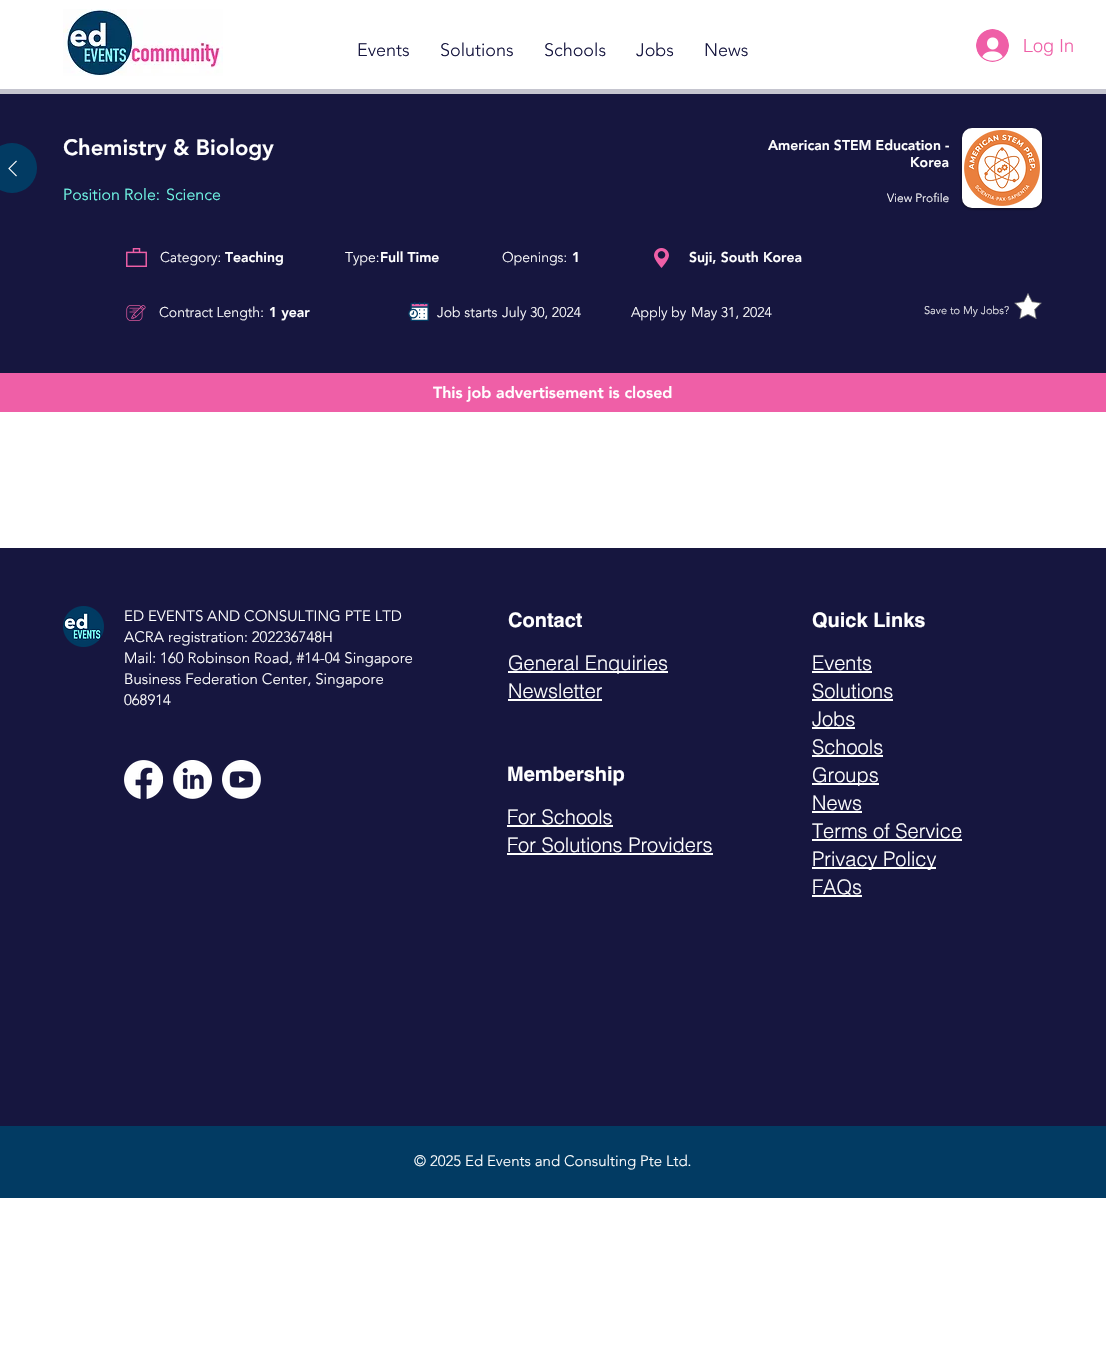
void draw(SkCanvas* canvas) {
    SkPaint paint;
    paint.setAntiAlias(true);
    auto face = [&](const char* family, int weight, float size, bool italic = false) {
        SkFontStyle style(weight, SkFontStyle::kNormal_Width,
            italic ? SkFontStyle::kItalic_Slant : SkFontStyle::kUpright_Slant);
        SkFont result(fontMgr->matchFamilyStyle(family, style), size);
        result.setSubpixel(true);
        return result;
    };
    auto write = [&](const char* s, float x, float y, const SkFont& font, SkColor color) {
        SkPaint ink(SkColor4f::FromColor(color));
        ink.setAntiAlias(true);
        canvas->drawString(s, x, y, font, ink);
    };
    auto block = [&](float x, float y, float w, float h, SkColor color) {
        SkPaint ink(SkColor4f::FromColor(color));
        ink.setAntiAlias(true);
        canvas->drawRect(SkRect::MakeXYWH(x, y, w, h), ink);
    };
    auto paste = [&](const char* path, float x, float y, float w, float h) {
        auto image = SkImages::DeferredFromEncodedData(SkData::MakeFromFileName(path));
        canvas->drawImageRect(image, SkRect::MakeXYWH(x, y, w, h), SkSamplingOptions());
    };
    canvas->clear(SK_ColorWHITE);
    paste("pic1.png", 63, 9, 160, 67);
    auto kFont1 = face("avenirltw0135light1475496", 300, 18);
    write("Events", 357, 56, kFont1, SkColorSetRGB(22, 22, 63));
    write("Solutions", 440, 56, kFont1, SkColorSetRGB(22, 22, 63));
    write("Schools", 544, 56, kFont1, SkColorSetRGB(22, 22, 63));
    write("Jobs", 636, 56, kFont1, SkColorSetRGB(22, 22, 63));
    write("News", 704, 56, kFont1, SkColorSetRGB(22, 22, 63));
    paste("pic2.png", 976, 29, 33, 33);
    auto kFont2 = face("helvetica", 300, 18);
    write("Log In", 1023, 52, kFont2, SkColorSetRGB(239, 95, 167));
    block(0, 89, 1106, 5, SkColorSetRGB(197, 197, 207));
    block(0, 94, 1106, 279, SkColorSetRGB(22, 22, 63));
    paint.setColor(SkColorSetRGB(2, 59, 99));
    canvas->drawCircle(12, 168, 25, paint);
    paste("pic3.png", 8, 160, 9, 17);
    auto kFont3 = face("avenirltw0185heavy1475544", 900, 22);
    write("Chemistry & Biology", 63, 155, kFont3, SK_ColorWHITE);
    auto kFont4 = face("avenirltw0185heavy1475544", 900, 14);
    write("American STEM Education -", 768, 150, kFont4, SK_ColorWHITE);
    write("Korea", 910, 167, kFont4, SK_ColorWHITE);
    paint.setColor(SkColorSetARGB(128, 0, 0, 0));
    paint.setMaskFilter(SkMaskFilter::MakeBlur(kNormal_SkBlurStyle, 1.5f));
    canvas->drawRoundRect(SkRect::MakeXYWH(962, 129, 80, 80), 10, 10, paint);
    paint.setMaskFilter(nullptr);
    paint.setColor(SK_ColorWHITE);
    canvas->drawRoundRect(SkRect::MakeXYWH(963, 129, 78, 78), 9, 9, paint);
    paint.setStyle(SkPaint::kStroke_Style);
    paint.setStrokeWidth(2);
    canvas->drawRoundRect(SkRect::MakeXYWH(963, 129, 78, 78), 9, 9, paint);
    paste("pic4.png", 964, 130, 76, 76);
    auto kFont5 = face("avenirltw0135light1475496", 300, 12);
    write("View Profile", 887, 202, kFont5, SK_ColorWHITE);
    auto kFont6 = face("avenirltw0135light1475496", 300, 16);
    write("Position Role:", 63, 200, kFont6, SkColorSetRGB(115, 253, 234));
    write("Science", 166, 200, kFont6, SkColorSetRGB(115, 253, 234));
    paste("pic5.png", 126, 248, 21, 19);
    auto kFont7 = face("avenirltw0135light1475496", 300, 14);
    write("Category:", 160, 262, kFont7, SK_ColorWHITE);
    write("Teaching", 225, 262, kFont4, SK_ColorWHITE);
    write("Type:", 345, 262, kFont7, SK_ColorWHITE);
    write("Full Time", 380, 262, kFont4, SK_ColorWHITE);
    write("Openings:", 502, 262, kFont7, SK_ColorWHITE);
    write("1", 572, 262, kFont4, SK_ColorWHITE);
    paste("pic6.png", 654, 248, 15, 20);
    write("Suji, South Korea", 689, 262, kFont4, SK_ColorWHITE);
    paste("pic7.png", 126, 305, 20, 16);
    write("Contract Length:", 159, 317, kFont7, SK_ColorWHITE);
    write("1 year", 269, 317, kFont4, SK_ColorWHITE);
    paste("pic8.png", 408, 302, 21, 19);
    write("Job starts", 437, 317, kFont7, SK_ColorWHITE);
    write("July 30, 2024", 502, 317, kFont7, SK_ColorWHITE);
    write("Apply by", 631, 317, kFont7, SK_ColorWHITE);
    write("May 31, 2024", 691, 317, kFont7, SK_ColorWHITE);
    auto kFont8 = face("avenirltw0135light1475496", 300, 11);
    write("Save to My Jobs?", 924, 314, kFont8, SkColorSetRGB(231, 231, 235));
    paste("pic9.png", 1014, 293, 28, 26);
    block(0, 373, 1106, 39, SkColorSetRGB(239, 95, 167));
    auto kFont9 = face("avenirltw0185heavy1475544", 900, 16);
    write("This job advertisement is closed", 433, 398, kFont9, SK_ColorWHITE);
    block(0, 548, 1106, 578, SkColorSetRGB(22, 22, 63));
    paste("pic10.png", 63, 606, 41, 41);
    auto kFont10 = face("avenirltw0135light1475496", 300, 15);
    write("ED EVENTS AND CONSULTING PTE LTD", 124, 621, kFont10, SK_ColorWHITE);
    write("ACRA registration: 202236748H", 124, 642, kFont10, SK_ColorWHITE);
    write("Mail: 160 Robinson Road, #14-04 Singapore", 124, 663, kFont10, SK_ColorWHITE);
    write("Business Federation Center, Singapore", 124, 684, kFont10, SK_ColorWHITE);
    write("068914", 124, 705, kFont10, SK_ColorWHITE);
    auto kFont11 = face("helvetica", 700, 20);
    write("Contact", 508, 627, kFont11, SK_ColorWHITE);
    block(508, 671, 160, 2, SK_ColorWHITE);
    auto kFont12 = face("helvetica", 300, 20);
    write("General Enquiries", 508, 670, kFont12, SK_ColorWHITE);
    write("Newsletter", 508, 698, kFont12, SK_ColorWHITE);
    block(508, 699, 94, 2, SK_ColorWHITE);
    write("Quick Links", 812, 627, kFont11, SK_ColorWHITE);
    write("Events", 812, 670, kFont12, SK_ColorWHITE);
    block(812, 671, 60, 2, SK_ColorWHITE);
    write("Solutions", 812, 698, kFont12, SK_ColorWHITE);
    block(812, 699, 81, 2, SK_ColorWHITE);
    write("Jobs", 812, 726, kFont12, SK_ColorWHITE);
    block(812, 727, 43, 2, SK_ColorWHITE);
    write("Schools", 812, 754, kFont12, SK_ColorWHITE);
    block(812, 755, 71, 2, SK_ColorWHITE);
    block(812, 783, 67, 2, SK_ColorWHITE);
    write("Groups", 812, 782, kFont12, SK_ColorWHITE);
    write("News", 812, 810, kFont12, SK_ColorWHITE);
    block(812, 811, 50, 2, SK_ColorWHITE);
    write("Terms of Service", 812, 838, kFont12, SK_ColorWHITE);
    block(812, 839, 150, 2, SK_ColorWHITE);
    block(812, 867, 124, 2, SK_ColorWHITE);
    write("Privacy Policy", 812, 866, kFont12, SK_ColorWHITE);
    write("FAQs", 812, 894, kFont12, SK_ColorWHITE);
    block(812, 895, 50, 2, SK_ColorWHITE);
    paste("pic11.png", 124, 760, 39, 39);
    paste("pic12.png", 173, 760, 39, 39);
    paste("pic13.png", 222, 760, 39, 39);
    write("Membership", 507, 781, kFont11, SK_ColorWHITE);
    write("For Schools", 507, 824, kFont12, SK_ColorWHITE);
    block(507, 825, 106, 2, SK_ColorWHITE);
    write("For Solutions Providers", 507, 852, kFont12, SK_ColorWHITE);
    block(507, 853, 206, 2, SK_ColorWHITE);
    block(0, 1126, 1106, 72, SkColorSetRGB(2, 59, 99));
    write("© 2025 Ed Events and Consulting Pte Ltd.", 414, 1166, kFont10, SK_ColorWHITE);
}
